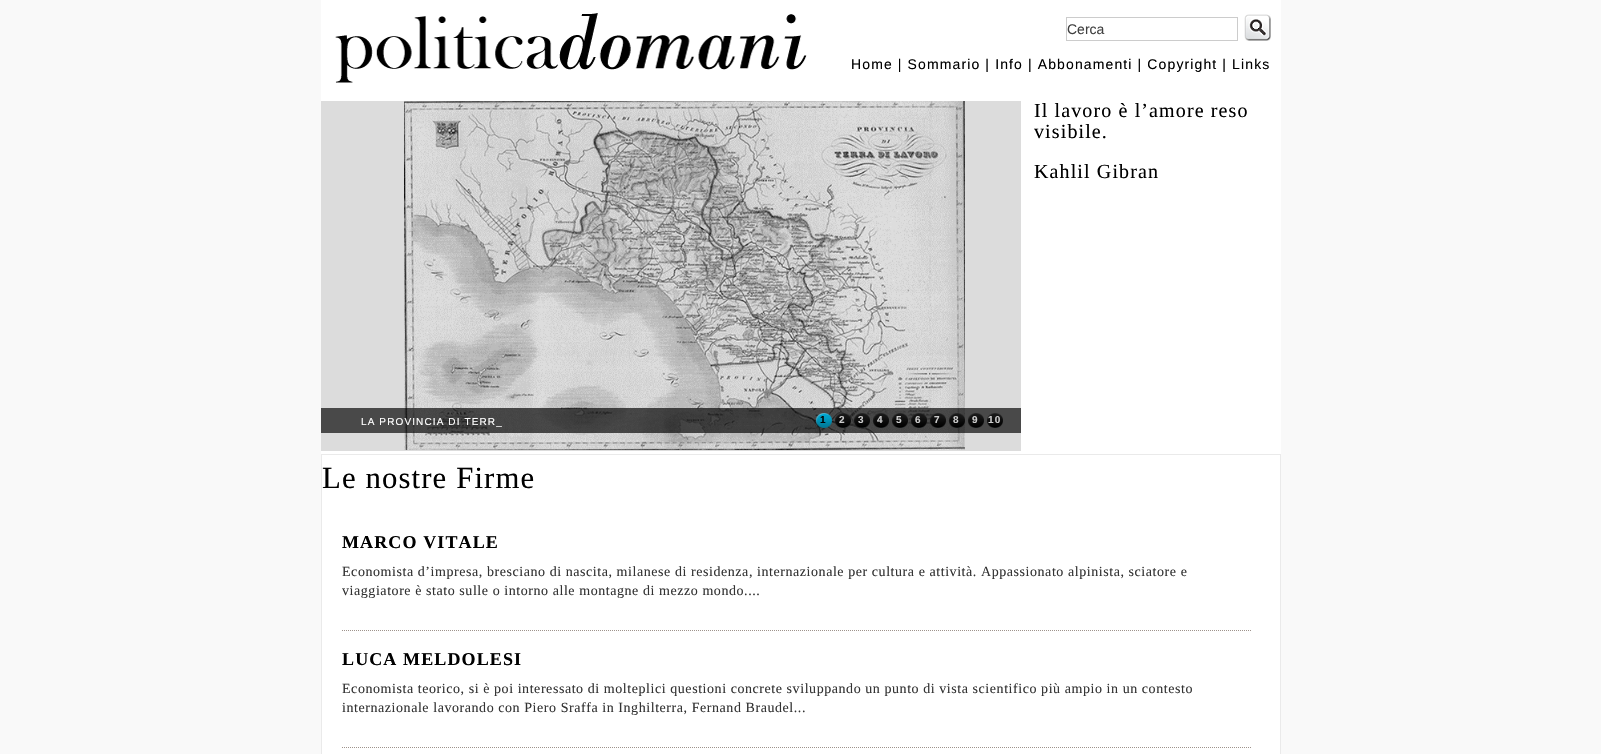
void draw(SkCanvas* canvas) {
    SkPaint paint;
    paint.setAntiAlias(true);
    auto face = [&](const char* family, int weight, float size, bool italic = false) {
        SkFontStyle style(weight, SkFontStyle::kNormal_Width,
            italic ? SkFontStyle::kItalic_Slant : SkFontStyle::kUpright_Slant);
        SkFont result(fontMgr->matchFamilyStyle(family, style), size);
        result.setSubpixel(true);
        return result;
    };
    auto write = [&](const char* s, float x, float y, const SkFont& font, SkColor color) {
        SkPaint ink(SkColor4f::FromColor(color));
        ink.setAntiAlias(true);
        canvas->drawString(s, x, y, font, ink);
    };
    auto writeSpaced = [&](const char* s, float x, float y, const SkFont& font, const SkPaint& ink, float letter, float word) {
        std::vector<SkGlyphID> glyphs(font.countText(s, strlen(s), SkTextEncoding::kUTF8));
        std::vector<float> xs(glyphs.size());
        font.textToGlyphs(s, strlen(s), SkTextEncoding::kUTF8, glyphs);
        font.getXPos(glyphs, xs, x);
        float extra = 0;
        for (size_t i = 0; i < glyphs.size(); i++) {
            xs[i] += extra;
            extra += letter + word * (glyphs[i] == font.unicharToGlyph(' '));
        }
        canvas->drawTextBlob(SkTextBlob::MakeFromPosHGlyphs(glyphs, xs, y, font), 0, 0, ink);
    };
    auto block = [&](float x, float y, float w, float h, SkColor color) {
        SkPaint ink(SkColor4f::FromColor(color));
        ink.setAntiAlias(true);
        canvas->drawRect(SkRect::MakeXYWH(x, y, w, h), ink);
    };
    auto paste = [&](const char* path, float x, float y, float w, float h) {
        auto image = SkImages::DeferredFromEncodedData(SkData::MakeFromFileName(path));
        canvas->drawImageRect(image, SkRect::MakeXYWH(x, y, w, h), SkSamplingOptions());
    };
    canvas->clear(SkColorSetRGB(249, 249, 249));
    block(321, 0, 960, 454, SK_ColorWHITE);
    paste("pic1.png", 335, 13, 472, 70);
    paint.setStyle(SkPaint::kStroke_Style);
    paint.setStrokeWidth(1);
    paint.setColor(SkColorSetRGB(204, 204, 204));
    canvas->drawRect(SkRect::MakeXYWH(1066.5f, 17.5f, 171, 23), paint);
    auto kFont1 = face("Liberation Sans", 400, 14);
    write("Cerca", 1067, 34, kFont1, SkColorSetRGB(64, 64, 64));
    paste("pic2.png", 1244, 14, 27, 27);
    paint.setStyle(SkPaint::kFill_Style);
    paint.setColor(SK_ColorBLACK);
    writeSpaced("Home | Sommario | Info | Abbonamenti | Copyright | Links", 851, 69, kFont1, paint, 1.12f, 0);
    auto kFont2 = face("Liberation Serif", 400, 20);
    writeSpaced("Il lavoro è l’amore reso", 1034, 117, kFont2, paint, 1.12f, 0);
    writeSpaced("visibile.", 1034, 138, kFont2, paint, 1.12f, 0);
    writeSpaced("Kahlil Gibran", 1034, 178, kFont2, paint, 1.12f, 0);
    paste("pic3.png", 321, 101, 700, 350);
    block(321, 408, 700, 25, SkColorSetARGB(171, 0, 0, 0));
    auto kFont3 = face("Liberation Sans", 400, 10);
    paint.setColor(SK_ColorWHITE);
    writeSpaced("LA PROVINCIA DI TERR_", 361, 425, kFont3, paint, 1.12f, 0);
    paste("pic4.png", 816, 413, 16, 15);
    auto kFont4 = face("Liberation Sans", 700, 10);
    paint.setColor(SK_ColorBLACK);
    writeSpaced("1", 820, 423, kFont4, paint, 1.12f, 0);
    paste("pic5.png", 835, 413, 16, 15);
    paint.setColor(SkColorSetRGB(204, 204, 204));
    writeSpaced("2", 839, 423, kFont4, paint, 1.12f, 0);
    paste("pic6.png", 854, 413, 16, 15);
    writeSpaced("3", 858, 423, kFont4, paint, 1.12f, 0);
    paste("pic7.png", 873, 413, 16, 15);
    writeSpaced("4", 877, 423, kFont4, paint, 1.12f, 0);
    paste("pic8.png", 892, 413, 16, 15);
    writeSpaced("5", 896, 423, kFont4, paint, 1.12f, 0);
    paste("pic9.png", 911, 413, 16, 15);
    writeSpaced("6", 915, 423, kFont4, paint, 1.12f, 0);
    paste("pic10.png", 930, 413, 16, 15);
    writeSpaced("7", 934, 423, kFont4, paint, 1.12f, 0);
    paste("pic11.png", 949, 413, 16, 15);
    writeSpaced("8", 953, 423, kFont4, paint, 1.12f, 0);
    paste("pic12.png", 968, 413, 16, 15);
    writeSpaced("9", 972, 423, kFont4, paint, 1.12f, 0);
    paste("pic13.png", 987, 413, 16, 15);
    writeSpaced("10", 988, 423, kFont4, paint, 1.12f, 0);
    paint.setColor(SK_ColorWHITE);
    canvas->drawRect(SkRect::MakeXYWH(321.5f, 454.5f, 959, 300), paint);
    paint.setStyle(SkPaint::kStroke_Style);
    paint.setColor(SkColorSetRGB(234, 234, 234));
    canvas->drawRect(SkRect::MakeXYWH(321.5f, 454.5f, 959, 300), paint);
    auto kFont5 = face("Liberation Serif", 400, 30.75f);
    paint.setStyle(SkPaint::kFill_Style);
    paint.setColor(SK_ColorBLACK);
    writeSpaced("Le nostre Firme", 322, 488, kFont5, paint, 1.12f, 0);
    auto kFont6 = face("Liberation Serif", 700, 18);
    writeSpaced("MARCO VITALE", 342, 548, kFont6, paint, 1.12f, 0);
    auto kFont7 = face("Liberation Serif", 400, 14);
    paint.setColor(SkColorSetRGB(51, 51, 51));
    writeSpaced("Economista d’impresa, bresciano di nascita, milanese di residenza, internazionale per cultura e attività. Appassionato alpinista, sciatore e", 342, 576, kFont7, paint, 0.56f, 0);
    writeSpaced("viaggiatore è stato sulle o intorno alle montagne di mezzo mondo....", 342, 595, kFont7, paint, 0.56f, 0);
    paint.setStyle(SkPaint::kStroke_Style);
    paint.setColor(SkColorSetRGB(158, 147, 140));
    paint.setPathEffect(SkDashPathEffect::Make({{1, 1}}, 0));
    canvas->drawPath(SkPathBuilder().moveTo(342, 630.5f).lineTo(1252, 630.5f).detach(), paint);
    paint.setPathEffect(nullptr);
    paint.setStyle(SkPaint::kFill_Style);
    paint.setColor(SK_ColorBLACK);
    writeSpaced("LUCA MELDOLESI", 342, 665, kFont6, paint, 1.12f, 0);
    paint.setColor(SkColorSetRGB(51, 51, 51));
    writeSpaced("Economista teorico, si è poi interessato di molteplici questioni concrete sviluppando un punto di vista scientifico più ampio in un contesto", 342, 693, kFont7, paint, 0.56f, 0);
    writeSpaced("internazionale lavorando con Piero Sraffa in Inghilterra, Fernand Braudel...", 342, 712, kFont7, paint, 0.56f, 0);
    paint.setStyle(SkPaint::kStroke_Style);
    paint.setColor(SkColorSetRGB(158, 147, 140));
    paint.setPathEffect(SkDashPathEffect::Make({{1, 1}}, 0));
    canvas->drawPath(SkPathBuilder().moveTo(342, 747.5f).lineTo(1252, 747.5f).detach(), paint);
    paint.setPathEffect(nullptr);
}
